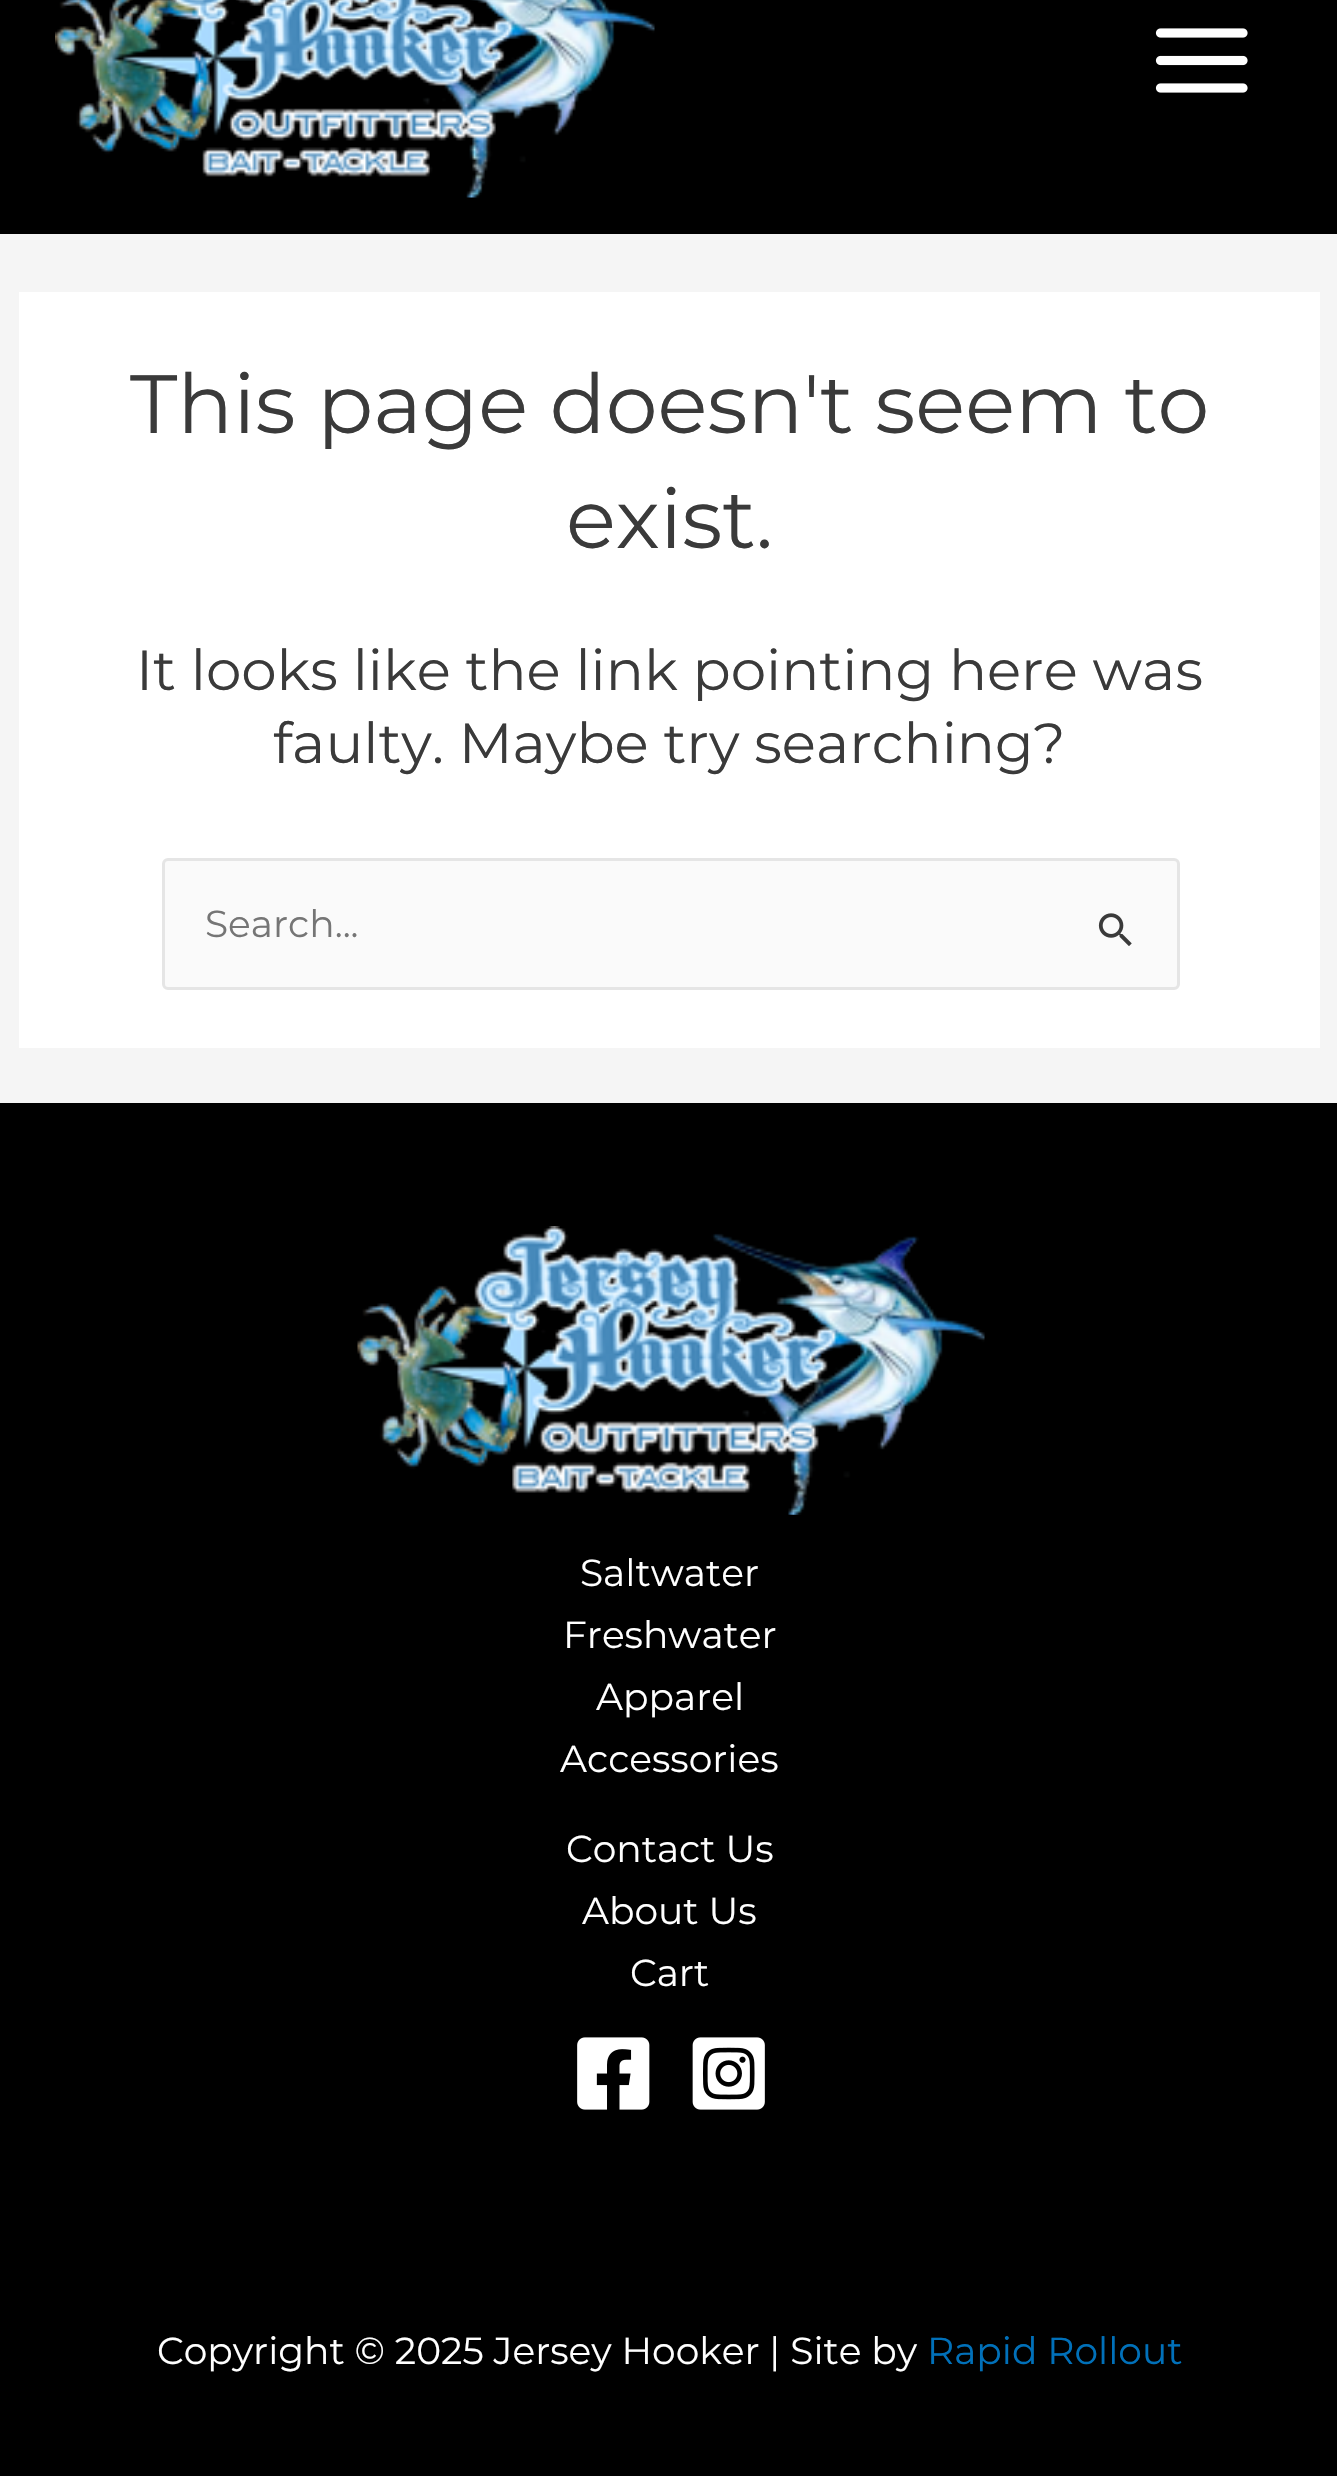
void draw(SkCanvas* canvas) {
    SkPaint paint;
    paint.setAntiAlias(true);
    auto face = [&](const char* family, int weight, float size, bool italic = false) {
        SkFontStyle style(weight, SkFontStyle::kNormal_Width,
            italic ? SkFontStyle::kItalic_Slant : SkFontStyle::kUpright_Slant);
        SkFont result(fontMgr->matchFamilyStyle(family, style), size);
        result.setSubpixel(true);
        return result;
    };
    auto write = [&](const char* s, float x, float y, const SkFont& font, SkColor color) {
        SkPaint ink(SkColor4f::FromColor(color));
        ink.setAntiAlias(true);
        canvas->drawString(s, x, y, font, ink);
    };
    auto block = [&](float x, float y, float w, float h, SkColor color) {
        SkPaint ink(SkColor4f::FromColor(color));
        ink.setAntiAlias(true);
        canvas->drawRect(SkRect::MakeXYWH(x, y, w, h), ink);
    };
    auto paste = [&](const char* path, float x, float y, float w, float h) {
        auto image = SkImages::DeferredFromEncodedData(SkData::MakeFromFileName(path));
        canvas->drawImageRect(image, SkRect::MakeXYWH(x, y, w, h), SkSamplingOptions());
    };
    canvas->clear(SkColorSetRGB(245, 245, 245));
    block(0, 0, 1337, 234, SK_ColorBLACK);
    paste("pic1.png", 55, 0, 600, 198);
    paste("pic2.png", 1155, 28, 93, 65);
    block(19, 292, 1301, 756, SK_ColorWHITE);
    auto kFont1 = face("Montserrat", 100, 82.5f);
    write("This page doesn't seem to", 130, 433, kFont1, SkColorSetRGB(58, 58, 58));
    write("exist.", 566, 548, kFont1, SkColorSetRGB(58, 58, 58));
    auto kFont2 = face("Montserrat", 100, 56.4f);
    write("It looks like the link pointing here was", 136, 690, kFont2, SkColorSetRGB(58, 58, 58));
    write("faulty. Maybe try searching?", 273, 763, kFont2, SkColorSetRGB(58, 58, 58));
    paint.setColor(SkColorSetRGB(250, 250, 250));
    canvas->drawRoundRect(SkRect::MakeXYWH(163.5f, 859.5f, 1015, 129), 4.5f, 4.5f, paint);
    paint.setStyle(SkPaint::kStroke_Style);
    paint.setStrokeWidth(3);
    paint.setColor(SkColorSetRGB(229, 229, 229));
    canvas->drawRoundRect(SkRect::MakeXYWH(163.5f, 859.5f, 1015, 129), 4.5f, 4.5f, paint);
    auto kFont3 = face("Montserrat", 100, 37.6f);
    write("Search...", 205, 937, kFont3, SkColorSetRGB(117, 117, 117));
    paste("pic3.png", 1098, 913, 34, 33);
    block(0, 1103, 1337, 1373, SK_ColorBLACK);
    paste("pic4.png", 357, 1226, 628, 289);
    write("Saltwater", 580, 1586, kFont3, SK_ColorWHITE);
    write("Freshwater", 563, 1648, kFont3, SK_ColorWHITE);
    write("Apparel", 596, 1710, kFont3, SK_ColorWHITE);
    write("Accessories", 560, 1772, kFont3, SK_ColorWHITE);
    write("Contact Us", 566, 1862, kFont3, SK_ColorWHITE);
    write("About Us", 582, 1924, kFont3, SK_ColorWHITE);
    write("Cart", 630, 1986, kFont3, SK_ColorWHITE);
    paste("pic5.png", 577, 2037, 73, 73);
    paste("pic6.png", 692, 2037, 73, 73);
    write("Copyright © 2025 Jersey Hooker | Site by", 157, 2364, kFont3, SK_ColorWHITE);
    write("Rapid Rollout", 927, 2364, kFont3, SkColorSetRGB(1, 112, 185));
}
